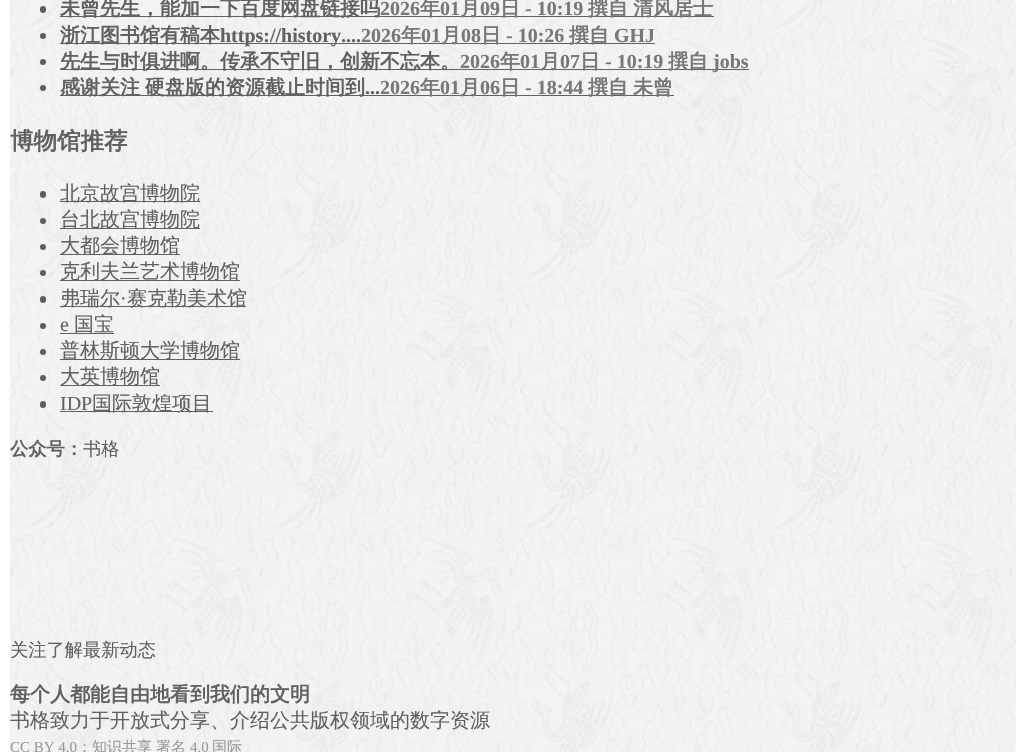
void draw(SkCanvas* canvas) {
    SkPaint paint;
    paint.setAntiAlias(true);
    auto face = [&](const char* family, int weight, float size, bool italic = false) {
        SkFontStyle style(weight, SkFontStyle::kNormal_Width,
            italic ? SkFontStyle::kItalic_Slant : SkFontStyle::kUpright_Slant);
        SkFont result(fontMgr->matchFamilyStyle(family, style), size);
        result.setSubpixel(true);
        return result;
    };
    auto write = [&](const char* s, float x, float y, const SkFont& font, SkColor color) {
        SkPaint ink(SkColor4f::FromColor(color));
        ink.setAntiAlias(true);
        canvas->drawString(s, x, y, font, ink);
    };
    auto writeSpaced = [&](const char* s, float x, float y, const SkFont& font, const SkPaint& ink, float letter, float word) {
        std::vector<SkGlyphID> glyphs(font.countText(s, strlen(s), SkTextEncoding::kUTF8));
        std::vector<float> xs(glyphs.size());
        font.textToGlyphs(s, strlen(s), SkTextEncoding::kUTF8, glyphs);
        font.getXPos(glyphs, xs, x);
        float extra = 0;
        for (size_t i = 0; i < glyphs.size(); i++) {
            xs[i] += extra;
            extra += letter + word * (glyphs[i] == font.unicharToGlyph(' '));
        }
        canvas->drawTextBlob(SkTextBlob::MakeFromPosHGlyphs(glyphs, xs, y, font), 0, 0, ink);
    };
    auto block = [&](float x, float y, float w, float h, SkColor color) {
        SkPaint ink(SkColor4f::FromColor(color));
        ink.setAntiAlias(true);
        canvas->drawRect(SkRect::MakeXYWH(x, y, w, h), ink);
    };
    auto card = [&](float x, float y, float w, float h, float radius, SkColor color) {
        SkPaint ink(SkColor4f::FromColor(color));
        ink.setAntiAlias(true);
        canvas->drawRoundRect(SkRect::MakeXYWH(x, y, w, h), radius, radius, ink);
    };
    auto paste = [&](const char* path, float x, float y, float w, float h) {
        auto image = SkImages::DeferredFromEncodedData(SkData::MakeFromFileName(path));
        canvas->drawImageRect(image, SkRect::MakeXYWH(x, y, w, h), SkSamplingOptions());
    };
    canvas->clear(SK_ColorWHITE);
    block(10, 0, 1006, 752, SkColorSetRGB(242, 242, 242));
    paste("pic1.png", 10, 0, 1006, 752);
    card(40, 6, 6, 7, 3, SkColorSetRGB(94, 94, 94));
    block(60, 16, 654, 1, SkColorSetRGB(97, 97, 97));
    auto kFont1 = face("WenQuanYi Zen Hei", 700, 20);
    write("未曾先生，能加一下百度网盘链接吗", 60, 15, kFont1, SkColorSetRGB(97, 97, 97));
    auto kFont2 = face("Liberation Serif", 700, 20);
    write("2026", 380, 15, kFont2, SkColorSetRGB(119, 119, 119));
    write("年", 420, 15, kFont1, SkColorSetRGB(119, 119, 119));
    write("01", 440, 15, kFont2, SkColorSetRGB(119, 119, 119));
    write("月", 460, 15, kFont1, SkColorSetRGB(119, 119, 119));
    write("09", 480, 15, kFont2, SkColorSetRGB(119, 119, 119));
    write("日", 500, 15, kFont1, SkColorSetRGB(119, 119, 119));
    write("- 10:19", 525, 15, kFont2, SkColorSetRGB(119, 119, 119));
    write("撰自", 588, 15, kFont1, SkColorSetRGB(119, 119, 119));
    write("清风居士", 633, 15, kFont1, SkColorSetRGB(119, 119, 119));
    paint.setColor(SkColorSetRGB(94, 94, 94));
    canvas->drawCircle(43, 36, 3, paint);
    block(60, 43, 595, 1, SkColorSetRGB(97, 97, 97));
    write("浙江图书馆有稿本", 60, 42, kFont1, SkColorSetRGB(97, 97, 97));
    write("https://history....", 220, 42, kFont2, SkColorSetRGB(97, 97, 97));
    write("2026", 361, 42, kFont2, SkColorSetRGB(119, 119, 119));
    write("年", 401, 42, kFont1, SkColorSetRGB(119, 119, 119));
    write("01", 421, 42, kFont2, SkColorSetRGB(119, 119, 119));
    write("月", 441, 42, kFont1, SkColorSetRGB(119, 119, 119));
    write("08", 461, 42, kFont2, SkColorSetRGB(119, 119, 119));
    write("日", 481, 42, kFont1, SkColorSetRGB(119, 119, 119));
    write("- 10:26", 506, 42, kFont2, SkColorSetRGB(119, 119, 119));
    write("撰自", 569, 42, kFont1, SkColorSetRGB(119, 119, 119));
    write("GHJ", 614, 42, kFont2, SkColorSetRGB(119, 119, 119));
    canvas->drawCircle(43, 62, 3, paint);
    block(60, 69, 689, 1, SkColorSetRGB(97, 97, 97));
    write("先生与时俱进啊。传承不守旧，创新不忘本。", 60, 68, kFont1, SkColorSetRGB(97, 97, 97));
    write("2026", 460, 68, kFont2, SkColorSetRGB(119, 119, 119));
    write("年", 500, 68, kFont1, SkColorSetRGB(119, 119, 119));
    write("01", 520, 68, kFont2, SkColorSetRGB(119, 119, 119));
    write("月", 540, 68, kFont1, SkColorSetRGB(119, 119, 119));
    write("07", 560, 68, kFont2, SkColorSetRGB(119, 119, 119));
    write("日", 580, 68, kFont1, SkColorSetRGB(119, 119, 119));
    write("- 10:19", 605, 68, kFont2, SkColorSetRGB(119, 119, 119));
    write("撰自", 668, 68, kFont1, SkColorSetRGB(119, 119, 119));
    write("jobs", 713, 68, kFont2, SkColorSetRGB(119, 119, 119));
    canvas->drawCircle(43, 88, 3, paint);
    block(60, 95, 614, 1, SkColorSetRGB(97, 97, 97));
    paint.setColor(SkColorSetRGB(97, 97, 97));
    writeSpaced("感谢关注 硬盘版的资源截止时间到", 60, 94, kFont1, paint, 0, -1);
    write("2026", 380, 94, kFont2, SkColorSetRGB(119, 119, 119));
    write("年", 420, 94, kFont1, SkColorSetRGB(119, 119, 119));
    write("01", 440, 94, kFont2, SkColorSetRGB(119, 119, 119));
    write("月", 460, 94, kFont1, SkColorSetRGB(119, 119, 119));
    write("06", 480, 94, kFont2, SkColorSetRGB(119, 119, 119));
    write("日", 500, 94, kFont1, SkColorSetRGB(119, 119, 119));
    write("- 18:44", 525, 94, kFont2, SkColorSetRGB(119, 119, 119));
    write("撰自", 588, 94, kFont1, SkColorSetRGB(119, 119, 119));
    write("未曾", 633, 94, kFont1, SkColorSetRGB(119, 119, 119));
    write("...", 365, 94, kFont2, SkColorSetRGB(97, 97, 97));
    auto kFont3 = face("WenQuanYi Zen Hei", 700, 23.5f);
    write("博物馆推荐", 10, 149, kFont3, SkColorSetRGB(97, 97, 97));
    card(40, 191, 6, 7, 3, SkColorSetRGB(94, 94, 94));
    block(60, 201, 140, 1, SkColorSetRGB(97, 97, 97));
    auto kFont4 = face("WenQuanYi Zen Hei", 500, 20);
    write("北京故宫博物院", 60, 200, kFont4, SkColorSetRGB(97, 97, 97));
    paint.setColor(SkColorSetRGB(94, 94, 94));
    canvas->drawCircle(43, 221, 3, paint);
    block(60, 228, 140, 1, SkColorSetRGB(97, 97, 97));
    write("台北故宫博物院", 60, 226, kFont4, SkColorSetRGB(97, 97, 97));
    canvas->drawCircle(43, 247, 3, paint);
    block(60, 254, 120, 1, SkColorSetRGB(97, 97, 97));
    write("大都会博物馆", 60, 252, kFont4, SkColorSetRGB(97, 97, 97));
    canvas->drawCircle(43, 273, 3, paint);
    block(60, 280, 180, 1, SkColorSetRGB(97, 97, 97));
    write("克利夫兰艺术博物馆", 60, 278, kFont4, SkColorSetRGB(97, 97, 97));
    card(40, 296, 6, 7, 3, SkColorSetRGB(94, 94, 94));
    block(60, 306, 186, 1, SkColorSetRGB(97, 97, 97));
    write("弗瑞尔", 60, 305, kFont4, SkColorSetRGB(97, 97, 97));
    auto kFont5 = face("Liberation Serif", 400, 20);
    write("·", 120, 305, kFont5, SkColorSetRGB(97, 97, 97));
    write("赛克勒美术馆", 127, 305, kFont4, SkColorSetRGB(97, 97, 97));
    canvas->drawCircle(43, 326, 3, paint);
    write("e", 60, 331, kFont5, SkColorSetRGB(97, 97, 97));
    block(60, 333, 54, 1, SkColorSetRGB(97, 97, 97));
    write("国宝", 74, 331, kFont4, SkColorSetRGB(97, 97, 97));
    canvas->drawCircle(43, 352, 3, paint);
    block(60, 359, 180, 1, SkColorSetRGB(97, 97, 97));
    write("普林斯顿大学博物馆", 60, 357, kFont4, SkColorSetRGB(97, 97, 97));
    canvas->drawCircle(43, 378, 3, paint);
    block(60, 385, 100, 1, SkColorSetRGB(97, 97, 97));
    write("大英博物馆", 60, 383, kFont4, SkColorSetRGB(97, 97, 97));
    card(40, 401, 6, 7, 3, SkColorSetRGB(94, 94, 94));
    write("IDP", 60, 410, kFont5, SkColorSetRGB(97, 97, 97));
    block(60, 411, 153, 1, SkColorSetRGB(97, 97, 97));
    write("国际敦煌项目", 92, 410, kFont4, SkColorSetRGB(97, 97, 97));
    auto kFont6 = face("WenQuanYi Zen Hei", 700, 18.25f);
    write("公众号：", 10, 455, kFont6, SkColorSetRGB(97, 97, 97));
    auto kFont7 = face("WenQuanYi Zen Hei", 500, 18.25f);
    write("书格", 83, 455, kFont7, SkColorSetRGB(97, 97, 97));
    write("关注了解最新动态", 10, 656, kFont7, SkColorSetRGB(97, 97, 97));
    write("每个人都能自由地看到我们的文明", 10, 701, kFont1, SkColorSetRGB(97, 97, 97));
    write("书格致力于开放式分享、介绍公共版权领域的数字资源", 10, 727, kFont4, SkColorSetRGB(97, 97, 97));
    auto kFont8 = face("Liberation Serif", 400, 15);
    write("CC BY 4.0", 10, 752, kFont8, SkColorSetRGB(153, 153, 153));
    auto kFont9 = face("WenQuanYi Zen Hei", 500, 15);
    write("：知识共享", 77, 752, kFont9, SkColorSetRGB(153, 153, 153));
    write("署名", 156, 752, kFont9, SkColorSetRGB(153, 153, 153));
    write("4.0", 190, 752, kFont8, SkColorSetRGB(153, 153, 153));
    write("国际", 212, 752, kFont9, SkColorSetRGB(153, 153, 153));
}
